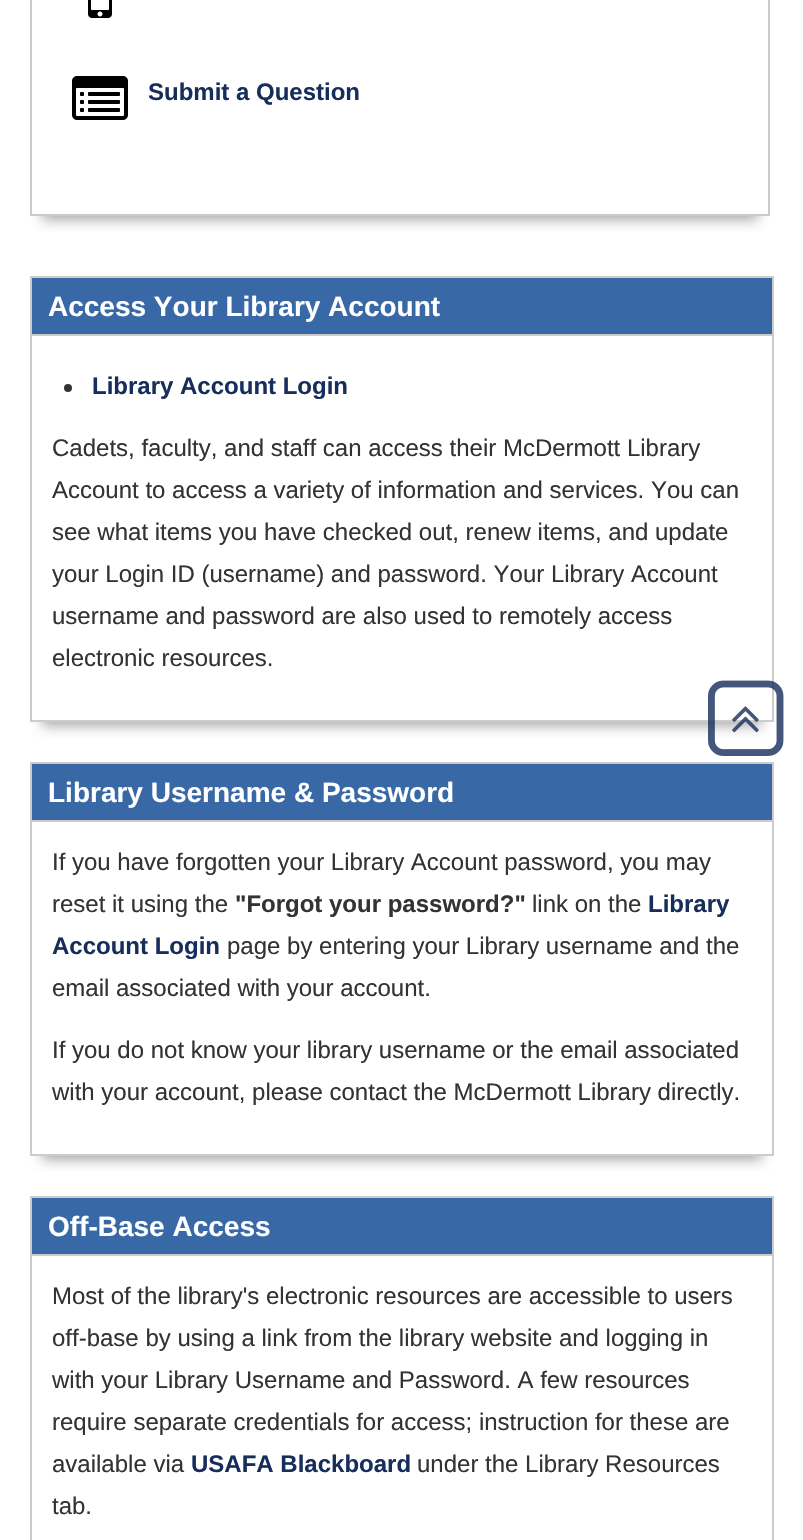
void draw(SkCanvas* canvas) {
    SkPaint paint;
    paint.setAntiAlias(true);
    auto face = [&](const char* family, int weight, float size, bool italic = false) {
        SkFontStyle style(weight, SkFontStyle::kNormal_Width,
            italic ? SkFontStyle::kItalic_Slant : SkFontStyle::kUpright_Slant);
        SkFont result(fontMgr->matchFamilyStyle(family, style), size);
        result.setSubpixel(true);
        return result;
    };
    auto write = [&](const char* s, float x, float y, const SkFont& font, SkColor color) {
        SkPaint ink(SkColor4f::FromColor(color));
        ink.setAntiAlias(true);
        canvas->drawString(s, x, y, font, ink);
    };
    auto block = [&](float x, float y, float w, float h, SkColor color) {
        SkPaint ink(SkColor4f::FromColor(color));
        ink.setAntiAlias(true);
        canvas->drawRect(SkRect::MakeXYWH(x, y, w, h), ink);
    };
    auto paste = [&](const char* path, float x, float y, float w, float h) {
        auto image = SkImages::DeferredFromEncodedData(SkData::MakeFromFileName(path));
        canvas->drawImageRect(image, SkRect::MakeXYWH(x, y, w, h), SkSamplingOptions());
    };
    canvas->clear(SK_ColorWHITE);
    canvas->save();
    canvas->clipRect(SkRect::MakeXYWH(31, 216, 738, 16));
    paint.setColor(SkColorSetRGB(170, 170, 170));
    paint.setMaskFilter(SkMaskFilter::MakeBlur(kNormal_SkBlurStyle, 6));
    canvas->drawRect(SkRect::MakeXYWH(42, -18, 716, 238), paint);
    paint.setMaskFilter(nullptr);
    canvas->restore();
    paint.setStyle(SkPaint::kStroke_Style);
    paint.setStrokeWidth(2);
    paint.setColor(SkColorSetRGB(204, 204, 204));
    canvas->drawRect(SkRect::MakeXYWH(31, -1, 738, 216), paint);
    paste("pic1.png", 88, 0, 24, 18);
    paste("pic2.png", 72, 76, 56, 44);
    auto kFont1 = face("Liberation Sans", 700, 24);
    write("Submit a Question", 148, 100, kFont1, SkColorSetRGB(23, 46, 92));
    canvas->save();
    canvas->clipRect(SkRect::MakeXYWH(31, 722, 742, 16));
    paint.setStyle(SkPaint::kFill_Style);
    paint.setColor(SkColorSetRGB(170, 170, 170));
    paint.setMaskFilter(SkMaskFilter::MakeBlur(kNormal_SkBlurStyle, 6));
    canvas->drawRect(SkRect::MakeXYWH(42, 304, 720, 422), paint);
    paint.setMaskFilter(nullptr);
    canvas->restore();
    paint.setStyle(SkPaint::kStroke_Style);
    paint.setColor(SkColorSetRGB(204, 204, 204));
    canvas->drawRect(SkRect::MakeXYWH(31, 277, 742, 444), paint);
    block(32, 278, 740, 56, SkColorSetRGB(56, 105, 166));
    block(32, 334, 740, 2, SkColorSetRGB(204, 204, 204));
    auto kFont2 = face("Liberation Sans", 700, 28);
    write("Access Your Library Account", 48, 316, kFont2, SK_ColorWHITE);
    paint.setStyle(SkPaint::kFill_Style);
    paint.setColor(SkColorSetRGB(51, 51, 51));
    canvas->drawCircle(68, 388, 4, paint);
    write("Library Account Login", 92, 394, kFont1, SkColorSetRGB(23, 46, 92));
    auto kFont3 = face("Liberation Sans", 400, 24);
    write("Cadets, faculty, and staff can access their McDermott Library", 52, 456, kFont3, SkColorSetRGB(51, 51, 51));
    write("Account to access a variety of information and services. You can", 52, 498, kFont3, SkColorSetRGB(51, 51, 51));
    write("see what items you have checked out, renew items, and update", 52, 540, kFont3, SkColorSetRGB(51, 51, 51));
    write("your Login ID (username) and password. Your Library Account", 52, 582, kFont3, SkColorSetRGB(51, 51, 51));
    write("username and password are also used to remotely access", 52, 624, kFont3, SkColorSetRGB(51, 51, 51));
    write("electronic resources.", 52, 666, kFont3, SkColorSetRGB(51, 51, 51));
    canvas->save();
    canvas->clipRect(SkRect::MakeXYWH(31, 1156, 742, 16));
    paint.setColor(SkColorSetRGB(170, 170, 170));
    paint.setMaskFilter(SkMaskFilter::MakeBlur(kNormal_SkBlurStyle, 6));
    canvas->drawRect(SkRect::MakeXYWH(42, 790, 720, 370), paint);
    paint.setMaskFilter(nullptr);
    canvas->restore();
    paint.setStyle(SkPaint::kStroke_Style);
    paint.setColor(SkColorSetRGB(204, 204, 204));
    canvas->drawRect(SkRect::MakeXYWH(31, 763, 742, 392), paint);
    block(32, 764, 740, 56, SkColorSetRGB(56, 105, 166));
    block(32, 820, 740, 2, SkColorSetRGB(204, 204, 204));
    write("Library Username & Password", 48, 802, kFont2, SK_ColorWHITE);
    write("If you have forgotten your Library Account password, you may", 52, 870, kFont3, SkColorSetRGB(51, 51, 51));
    write("reset it using the", 52, 912, kFont3, SkColorSetRGB(51, 51, 51));
    write("\"Forgot your password?\"", 235, 912, kFont1, SkColorSetRGB(51, 51, 51));
    write("link on the", 532, 912, kFont3, SkColorSetRGB(51, 51, 51));
    write("Library", 648, 912, kFont1, SkColorSetRGB(23, 46, 92));
    write("Account Login", 52, 954, kFont1, SkColorSetRGB(23, 46, 92));
    write("page by entering your Library username and the", 227, 954, kFont3, SkColorSetRGB(51, 51, 51));
    write("email associated with your account.", 52, 996, kFont3, SkColorSetRGB(51, 51, 51));
    write("If you do not know your library username or the email associated", 52, 1058, kFont3, SkColorSetRGB(51, 51, 51));
    write("with your account, please contact the McDermott Library directly.", 52, 1100, kFont3, SkColorSetRGB(51, 51, 51));
    canvas->drawRect(SkRect::MakeXYWH(31, 1197, 742, 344), paint);
    block(32, 1198, 740, 56, SkColorSetRGB(56, 105, 166));
    block(32, 1254, 740, 2, SkColorSetRGB(204, 204, 204));
    write("Off-Base Access", 48, 1236, kFont2, SK_ColorWHITE);
    write("Most of the library's electronic resources are accessible to users", 52, 1304, kFont3, SkColorSetRGB(51, 51, 51));
    write("off-base by using a link from the library website and logging in", 52, 1346, kFont3, SkColorSetRGB(51, 51, 51));
    write("with your Library Username and Password. A few resources", 52, 1388, kFont3, SkColorSetRGB(51, 51, 51));
    write("require separate credentials for access; instruction for these are", 52, 1430, kFont3, SkColorSetRGB(51, 51, 51));
    write("available via", 52, 1472, kFont3, SkColorSetRGB(51, 51, 51));
    write("USAFA Blackboard", 191, 1472, kFont1, SkColorSetRGB(23, 46, 92));
    write("under the Library Resources", 417, 1472, kFont3, SkColorSetRGB(51, 51, 51));
    write("tab.", 52, 1514, kFont3, SkColorSetRGB(51, 51, 51));
    paste("pic3.png", 708, 680, 76, 76);
    paste("pic4.png", 732, 706, 27, 27);
}
